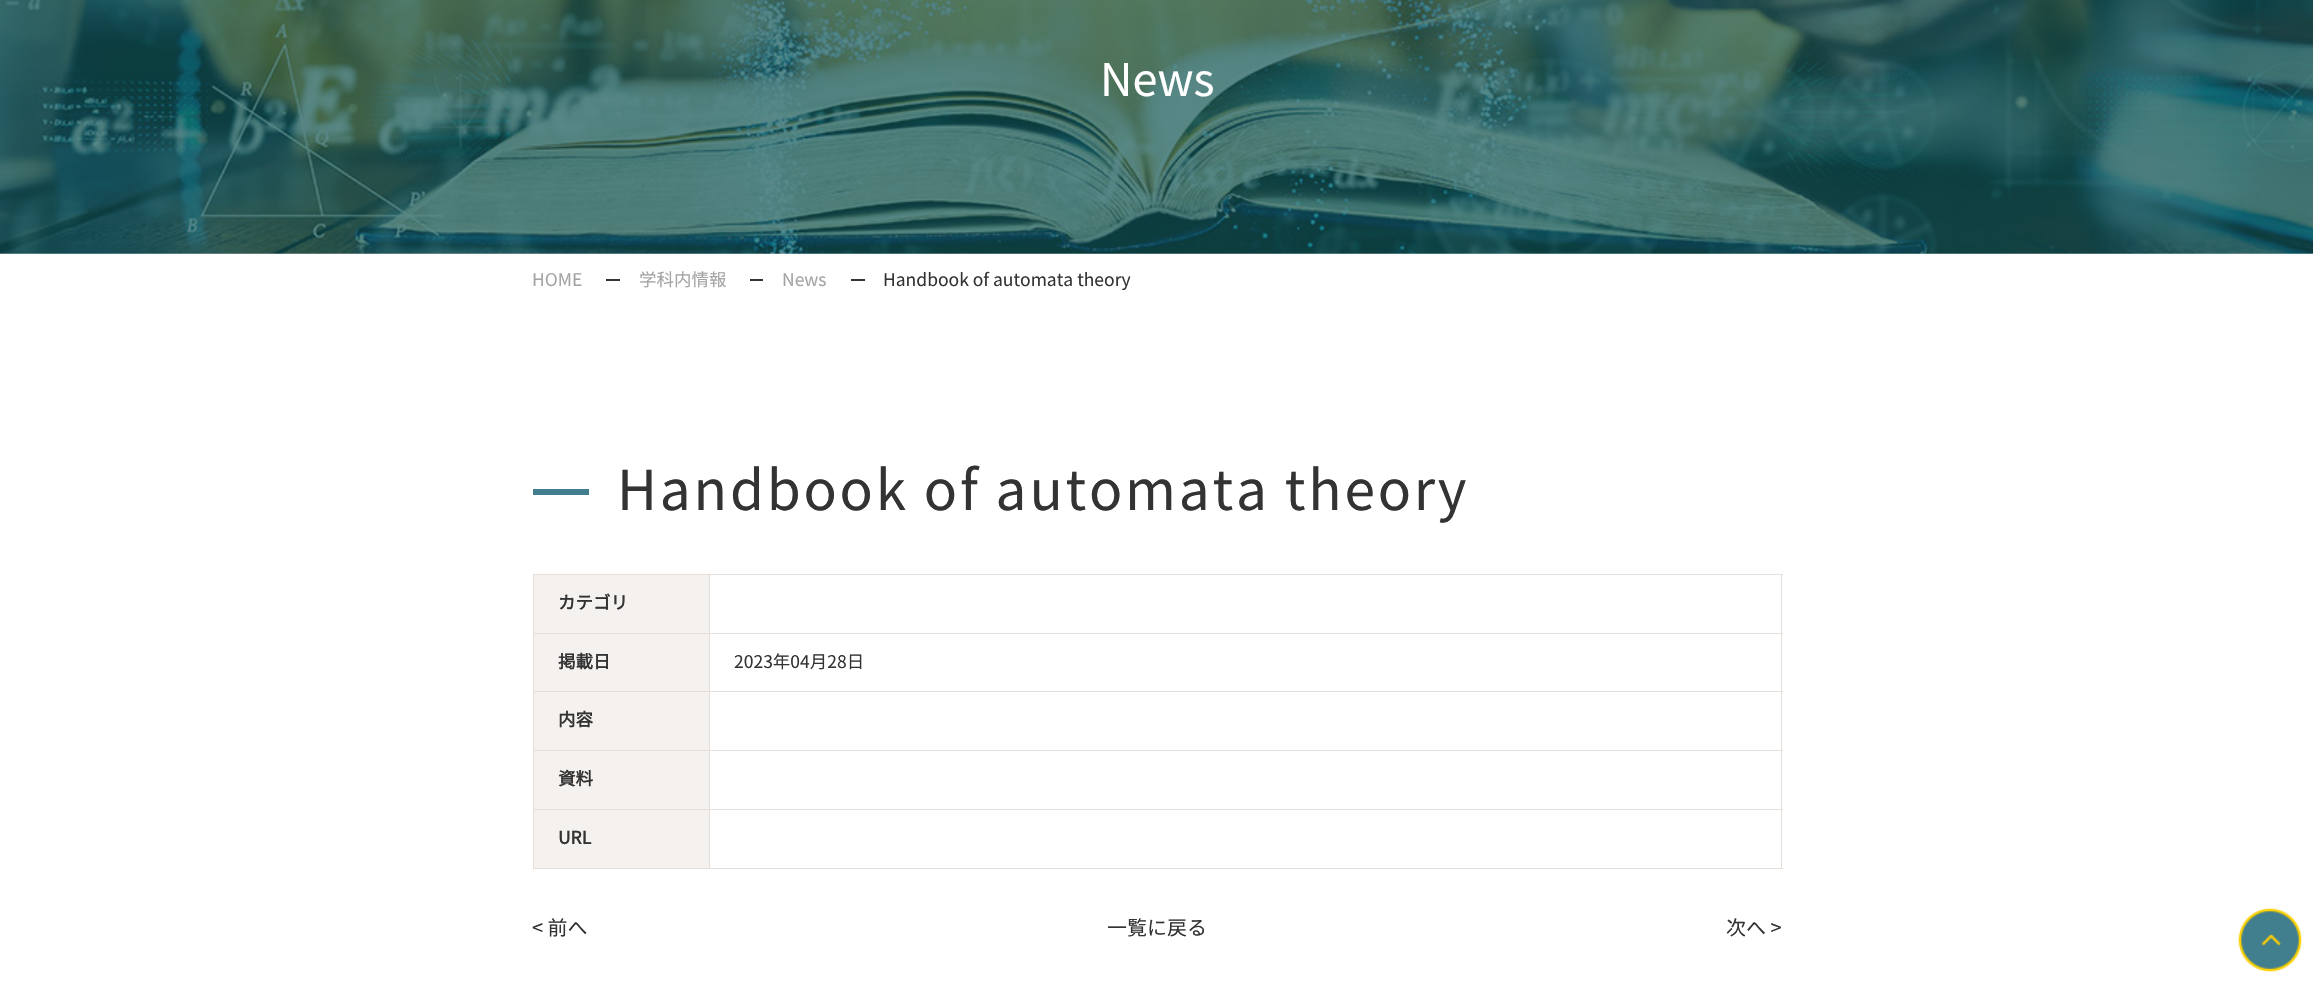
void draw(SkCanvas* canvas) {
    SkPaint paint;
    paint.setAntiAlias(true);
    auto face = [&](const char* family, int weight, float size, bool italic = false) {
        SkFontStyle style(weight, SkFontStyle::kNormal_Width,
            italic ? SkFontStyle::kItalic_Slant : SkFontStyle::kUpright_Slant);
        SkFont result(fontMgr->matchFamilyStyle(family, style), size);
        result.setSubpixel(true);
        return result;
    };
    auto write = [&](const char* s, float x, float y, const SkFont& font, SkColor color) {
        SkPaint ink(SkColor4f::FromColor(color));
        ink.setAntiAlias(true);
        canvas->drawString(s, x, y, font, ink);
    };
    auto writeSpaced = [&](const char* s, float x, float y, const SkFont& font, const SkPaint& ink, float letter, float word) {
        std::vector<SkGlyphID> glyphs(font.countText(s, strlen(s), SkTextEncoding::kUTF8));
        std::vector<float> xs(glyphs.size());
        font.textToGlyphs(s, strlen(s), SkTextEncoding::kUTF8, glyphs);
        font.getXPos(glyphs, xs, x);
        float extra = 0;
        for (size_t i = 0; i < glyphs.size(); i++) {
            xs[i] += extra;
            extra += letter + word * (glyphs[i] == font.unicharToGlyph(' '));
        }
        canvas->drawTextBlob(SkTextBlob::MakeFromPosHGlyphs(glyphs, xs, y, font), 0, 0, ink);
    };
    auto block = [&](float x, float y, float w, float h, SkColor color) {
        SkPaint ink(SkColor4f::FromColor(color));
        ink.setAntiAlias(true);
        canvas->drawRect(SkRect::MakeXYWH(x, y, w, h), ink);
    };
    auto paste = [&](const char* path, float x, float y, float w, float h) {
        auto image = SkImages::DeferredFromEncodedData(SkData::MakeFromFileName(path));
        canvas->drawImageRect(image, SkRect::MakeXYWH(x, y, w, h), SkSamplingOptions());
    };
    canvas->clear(SK_ColorWHITE);
    paste("pic1.png", 0, 0, 2313, 254);
    auto kFont1 = face("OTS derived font", 400, 45);
    write("News", 1100, 96, kFont1, SK_ColorWHITE);
    auto kFont2 = face("OTS derived font", 400, 17.5f);
    write("HOME", 532, 286, kFont2, SkColorSetRGB(166, 164, 163));
    write("学科内情報", 639, 286, kFont2, SkColorSetRGB(166, 164, 163));
    block(606, 279, 14, 2, SkColorSetRGB(51, 51, 51));
    write("News", 782, 286, kFont2, SkColorSetRGB(166, 164, 163));
    block(750, 279, 13, 2, SkColorSetRGB(51, 51, 51));
    write("Handbook of automata theory", 883, 286, kFont2, SkColorSetRGB(51, 51, 51));
    block(851, 279, 14, 2, SkColorSetRGB(51, 51, 51));
    block(533, 489, 56, 6, SkColorSetRGB(66, 127, 142));
    auto kFont3 = face("OTS derived font", 400, 55);
    paint.setColor(SkColorSetRGB(51, 51, 51));
    writeSpaced("Handbook of automata theory", 617, 510, kFont3, paint, 2.75f, 0);
    block(533, 574, 1250, 1, SkColorSetRGB(230, 222, 216));
    block(533, 574, 1, 295, SkColorSetRGB(230, 222, 216));
    block(534, 575, 175, 58, SkColorSetRGB(244, 241, 239));
    block(1781, 574, 1, 295, SkColorSetRGB(230, 222, 216));
    block(709, 868, 1074, 1, SkColorSetRGB(230, 222, 216));
    block(709, 809, 1, 60, SkColorSetRGB(230, 222, 216));
    block(709, 809, 1074, 1, SkColorSetRGB(230, 222, 216));
    block(709, 750, 1, 60, SkColorSetRGB(230, 222, 216));
    block(709, 750, 1074, 1, SkColorSetRGB(230, 222, 216));
    block(709, 691, 1, 60, SkColorSetRGB(230, 222, 216));
    block(709, 691, 1074, 1, SkColorSetRGB(230, 222, 216));
    block(709, 633, 1, 60, SkColorSetRGB(230, 222, 216));
    block(709, 633, 1074, 1, SkColorSetRGB(230, 222, 216));
    block(709, 574, 1, 60, SkColorSetRGB(230, 222, 216));
    block(533, 633, 177, 1, SkColorSetRGB(230, 222, 216));
    auto kFont4 = face("OTS derived font", 700, 17.5f);
    write("カテゴリ", 558, 609, kFont4, SkColorSetRGB(51, 51, 51));
    block(534, 634, 175, 116, SkColorSetRGB(244, 241, 239));
    block(533, 691, 177, 1, SkColorSetRGB(230, 222, 216));
    write("掲載日", 558, 668, kFont4, SkColorSetRGB(51, 51, 51));
    write("2023年04月28日", 734, 668, kFont2, SkColorSetRGB(51, 51, 51));
    block(533, 750, 177, 1, SkColorSetRGB(230, 222, 216));
    write("内容", 558, 726, kFont4, SkColorSetRGB(51, 51, 51));
    block(534, 751, 175, 58, SkColorSetRGB(244, 241, 239));
    block(533, 809, 177, 1, SkColorSetRGB(230, 222, 216));
    write("資料", 558, 785, kFont4, SkColorSetRGB(51, 51, 51));
    block(534, 810, 175, 58, SkColorSetRGB(244, 241, 239));
    block(533, 868, 177, 1, SkColorSetRGB(230, 222, 216));
    write("URL", 558, 844, kFont4, SkColorSetRGB(51, 51, 51));
    auto kFont5 = face("OTS derived font", 400, 20);
    write("< 前へ", 532, 935, kFont5, SkColorSetRGB(51, 51, 51));
    write("一覧に戻る", 1107, 935, kFont5, SkColorSetRGB(51, 51, 51));
    write("次へ >", 1726, 935, kFont5, SkColorSetRGB(51, 51, 51));
    paste("pic2.png", 2238, 908, 64, 64);
}
